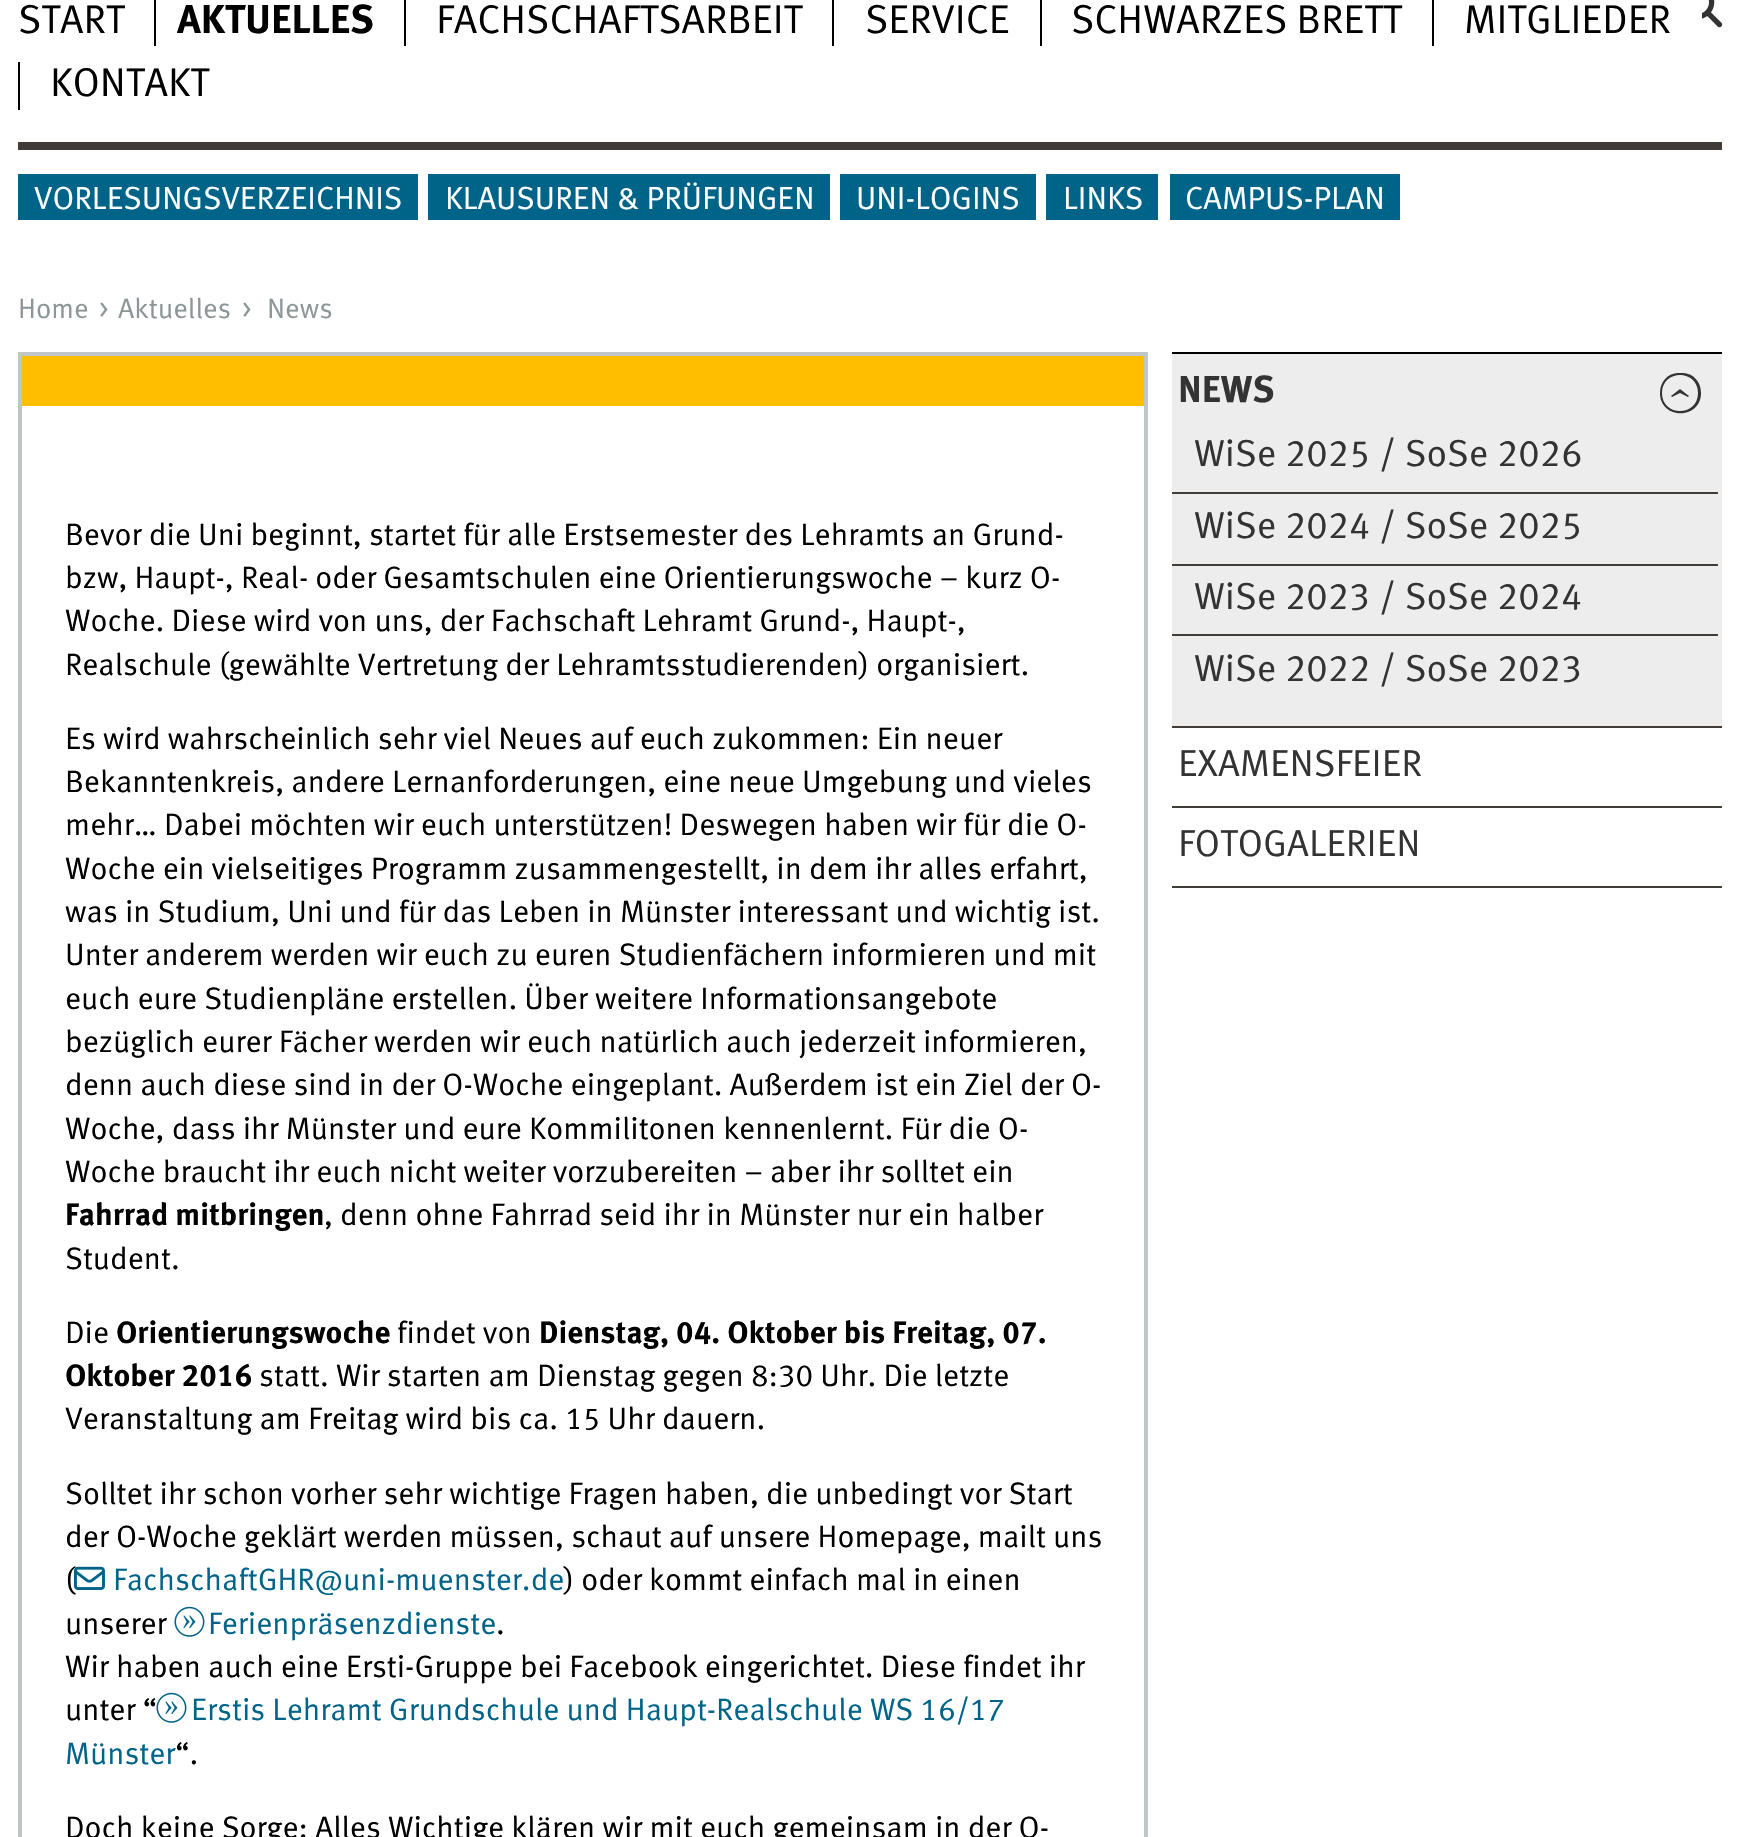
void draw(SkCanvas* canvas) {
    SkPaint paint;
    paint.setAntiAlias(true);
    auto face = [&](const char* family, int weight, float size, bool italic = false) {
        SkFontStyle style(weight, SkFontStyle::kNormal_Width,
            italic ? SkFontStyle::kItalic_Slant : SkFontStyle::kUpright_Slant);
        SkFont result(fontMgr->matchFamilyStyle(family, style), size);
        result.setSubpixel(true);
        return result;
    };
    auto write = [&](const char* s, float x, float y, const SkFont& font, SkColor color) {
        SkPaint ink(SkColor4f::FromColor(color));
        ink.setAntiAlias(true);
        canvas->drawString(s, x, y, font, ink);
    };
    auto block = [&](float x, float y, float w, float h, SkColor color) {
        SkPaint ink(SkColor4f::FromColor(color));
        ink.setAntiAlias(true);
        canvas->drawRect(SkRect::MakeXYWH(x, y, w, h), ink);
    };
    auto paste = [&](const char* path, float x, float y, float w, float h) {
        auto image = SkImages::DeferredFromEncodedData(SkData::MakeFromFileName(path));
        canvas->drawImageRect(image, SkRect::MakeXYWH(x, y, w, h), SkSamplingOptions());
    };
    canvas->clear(SK_ColorWHITE);
    block(18, 142, 1704, 8, SkColorSetRGB(66, 60, 57));
    auto kFont1 = face("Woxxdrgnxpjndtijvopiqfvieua", 400, 40.25f);
    write("START", 18, 33, kFont1, SK_ColorBLACK);
    block(154, 0, 2, 46, SK_ColorBLACK);
    auto kFont2 = face("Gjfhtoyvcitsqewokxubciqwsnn", 700, 40.25f);
    write("AKTUELLES", 177, 33, kFont2, SK_ColorBLACK);
    block(404, 0, 2, 46, SK_ColorBLACK);
    write("FACHSCHAFTSARBEIT", 436, 33, kFont1, SK_ColorBLACK);
    block(832, 0, 2, 46, SK_ColorBLACK);
    write("SERVICE", 865, 33, kFont1, SK_ColorBLACK);
    block(1040, 0, 2, 46, SK_ColorBLACK);
    write("SCHWARZES BRETT", 1071, 33, kFont1, SK_ColorBLACK);
    block(1432, 0, 2, 46, SK_ColorBLACK);
    write("MITGLIEDER", 1464, 33, kFont1, SK_ColorBLACK);
    block(18, 62, 2, 48, SK_ColorBLACK);
    write("KONTAKT", 50, 96, kFont1, SK_ColorBLACK);
    paste("pic1.png", 1702, 0, 21, 28);
    block(18, 174, 400, 46, SkColorSetRGB(0, 100, 137));
    auto kFont3 = face("Woxxdrgnxpjndtijvopiqfvieua", 400, 31.9f);
    write("VORLESUNGSVERZEICHNIS", 34, 209, kFont3, SK_ColorWHITE);
    block(428, 174, 402, 46, SkColorSetRGB(0, 100, 137));
    write("KLAUSUREN & PRÜFUNGEN", 445, 209, kFont3, SK_ColorWHITE);
    block(840, 174, 196, 46, SkColorSetRGB(0, 100, 137));
    write("UNI-LOGINS", 856, 209, kFont3, SK_ColorWHITE);
    block(1046, 174, 112, 46, SkColorSetRGB(0, 100, 137));
    write("LINKS", 1063, 209, kFont3, SK_ColorWHITE);
    block(1170, 174, 230, 46, SkColorSetRGB(0, 100, 137));
    write("CAMPUS-PLAN", 1185, 209, kFont3, SK_ColorWHITE);
    auto kFont4 = face("Woxxdrgnxpjndtijvopiqfvieua", 400, 28);
    write("Home", 18, 318, kFont4, SkColorSetRGB(140, 149, 152));
    write(">", 99, 318, kFont4, SkColorSetRGB(140, 149, 152));
    write("Aktuelles", 118, 318, kFont4, SkColorSetRGB(140, 149, 152));
    write(">", 242, 318, kFont4, SkColorSetRGB(140, 149, 152));
    write("News", 267, 318, kFont4, SkColorSetRGB(140, 149, 152));
    paint.setStyle(SkPaint::kStroke_Style);
    paint.setStrokeWidth(4);
    paint.setColor(SkColorSetRGB(190, 198, 200));
    canvas->drawRect(SkRect::MakeXYWH(20, 354, 1126, 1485), paint);
    block(22, 356, 1122, 50, SkColorSetRGB(255, 191, 0));
    auto kFont5 = face("Woxxdrgnxpjndtijvopiqfvieua", 400, 30.95f);
    write("Bevor die Uni beginnt, startet für alle Erstsemester des Lehramts an Grund-", 65, 545, kFont5, SK_ColorBLACK);
    write("bzw, Haupt-, Real- oder Gesamtschulen eine Orientierungswoche – kurz O-", 65, 588, kFont5, SK_ColorBLACK);
    write("Woche. Diese wird von uns, der Fachschaft Lehramt Grund-, Haupt-,", 65, 631, kFont5, SK_ColorBLACK);
    write("Realschule (gewählte Vertretung der Lehramtsstudierenden) organisiert.", 65, 675, kFont5, SK_ColorBLACK);
    write("Es wird wahrscheinlich sehr viel Neues auf euch zukommen: Ein neuer", 65, 749, kFont5, SK_ColorBLACK);
    write("Bekanntenkreis, andere Lernanforderungen, eine neue Umgebung und vieles", 65, 792, kFont5, SK_ColorBLACK);
    write("mehr… Dabei möchten wir euch unterstützen! Deswegen haben wir für die O-", 65, 835, kFont5, SK_ColorBLACK);
    write("Woche ein vielseitiges Programm zusammengestellt, in dem ihr alles erfahrt,", 65, 879, kFont5, SK_ColorBLACK);
    write("was in Studium, Uni und für das Leben in Münster interessant und wichtig ist.", 65, 922, kFont5, SK_ColorBLACK);
    write("Unter anderem werden wir euch zu euren Studienfächern informieren und mit", 65, 965, kFont5, SK_ColorBLACK);
    write("euch eure Studienpläne erstellen. Über weitere Informationsangebote", 65, 1009, kFont5, SK_ColorBLACK);
    write("bezüglich eurer Fächer werden wir euch natürlich auch jederzeit informieren,", 65, 1052, kFont5, SK_ColorBLACK);
    write("denn auch diese sind in der O-Woche eingeplant. Außerdem ist ein Ziel der O-", 65, 1095, kFont5, SK_ColorBLACK);
    write("Woche, dass ihr Münster und eure Kommilitonen kennenlernt. Für die O-", 65, 1139, kFont5, SK_ColorBLACK);
    write("Woche braucht ihr euch nicht weiter vorzubereiten – aber ihr solltet ein", 65, 1182, kFont5, SK_ColorBLACK);
    auto kFont6 = face("Gjfhtoyvcitsqewokxubciqwsnn", 700, 30.95f);
    write("Fahrrad mitbringen", 65, 1225, kFont6, SK_ColorBLACK);
    write(", denn ohne Fahrrad seid ihr in Münster nur ein halber", 324, 1225, kFont5, SK_ColorBLACK);
    write("Student.", 65, 1269, kFont5, SK_ColorBLACK);
    write("Die", 65, 1343, kFont5, SK_ColorBLACK);
    write("Orientierungswoche", 116, 1343, kFont6, SK_ColorBLACK);
    write("findet von", 397, 1343, kFont5, SK_ColorBLACK);
    write("Dienstag, 04. Oktober bis Freitag, 07.", 539, 1343, kFont6, SK_ColorBLACK);
    write("Oktober 2016", 65, 1386, kFont6, SK_ColorBLACK);
    write("statt. Wir starten am Dienstag gegen 8:30 Uhr. Die letzte", 259, 1386, kFont5, SK_ColorBLACK);
    write("Veranstaltung am Freitag wird bis ca. 15 Uhr dauern.", 65, 1429, kFont5, SK_ColorBLACK);
    write("Solltet ihr schon vorher sehr wichtige Fragen haben, die unbedingt vor Start", 65, 1504, kFont5, SK_ColorBLACK);
    write("der O-Woche geklärt werden müssen, schaut auf unsere Homepage, mailt uns", 65, 1547, kFont5, SK_ColorBLACK);
    write("(", 65, 1590, kFont5, SK_ColorBLACK);
    paste("pic2.png", 74, 1566, 31, 24);
    write("FachschaftGHR@uni-muenster.de", 113, 1590, kFont5, SkColorSetRGB(0, 100, 137));
    write(") oder kommt einfach mal in einen", 564, 1590, kFont5, SK_ColorBLACK);
    write("unserer", 65, 1634, kFont5, SK_ColorBLACK);
    paste("pic3.png", 174, 1606, 31, 31);
    write("Ferienpräsenzdienste", 208, 1634, kFont5, SkColorSetRGB(0, 100, 137));
    write(".", 496, 1634, kFont5, SK_ColorBLACK);
    write("Wir haben auch eine Ersti-Gruppe bei Facebook eingerichtet. Diese findet ihr", 65, 1677, kFont5, SK_ColorBLACK);
    write("unter “", 65, 1720, kFont5, SK_ColorBLACK);
    paste("pic3.png", 156, 1692, 31, 31);
    write("Erstis Lehramt Grundschule und Haupt-Realschule WS 16/17", 191, 1720, kFont5, SkColorSetRGB(0, 100, 137));
    write("Münster", 65, 1764, kFont5, SkColorSetRGB(0, 100, 137));
    write("“.", 175, 1764, kFont5, SK_ColorBLACK);
    write("Doch keine Sorge: Alles Wichtige klären wir mit euch gemeinsam in der O-", 65, 1838, kFont5, SK_ColorBLACK);
    block(1172, 354, 550, 372, SkColorSetRGB(237, 237, 237));
    block(1172, 352, 550, 2, SK_ColorBLACK);
    auto kFont7 = face("Gjfhtoyvcitsqewokxubciqwsnn", 700, 37.5f);
    write("NEWS", 1178, 402, kFont7, SkColorSetRGB(51, 51, 51));
    paint.setStyle(SkPaint::kFill_Style);
    paint.setColor(SkColorSetRGB(51, 51, 51));
    canvas->drawPath(SkPathBuilder(SkPathFillType::kEvenOdd).moveTo(1660, 393).cubicTo(1660, 420, 1701, 420, 1701, 393).cubicTo(1701, 381, 1693, 374, 1684, 373).lineTo(1677, 373).cubicTo(1668, 374, 1660, 381, 1660, 393).close().moveTo(1662, 393).cubicTo(1662, 369, 1698, 369, 1698, 393).cubicTo(1698, 417, 1662, 417, 1662, 393).close().moveTo(1671, 396).lineTo(1672, 397).lineTo(1680, 393).lineTo(1688, 397).lineTo(1689, 396).lineTo(1680, 389).close().detach(), paint);
    auto kFont8 = face("Woxxdrgnxpjndtijvopiqfvieua", 400, 37.5f);
    write("WiSe 2025 / SoSe 2026", 1194, 466, kFont8, SkColorSetRGB(51, 51, 51));
    block(1172, 492, 546, 2, SkColorSetRGB(66, 60, 57));
    write("WiSe 2024 / SoSe 2025", 1194, 538, kFont8, SkColorSetRGB(51, 51, 51));
    block(1172, 564, 546, 2, SkColorSetRGB(66, 60, 57));
    write("WiSe 2023 / SoSe 2024", 1194, 609, kFont8, SkColorSetRGB(51, 51, 51));
    block(1172, 634, 546, 2, SkColorSetRGB(66, 60, 57));
    write("WiSe 2022 / SoSe 2023", 1194, 681, kFont8, SkColorSetRGB(51, 51, 51));
    block(1172, 726, 550, 2, SkColorSetRGB(66, 60, 57));
    write("EXAMENSFEIER", 1178, 776, kFont8, SkColorSetRGB(51, 51, 51));
    block(1172, 806, 550, 2, SkColorSetRGB(66, 60, 57));
    block(1172, 886, 550, 2, SkColorSetRGB(66, 60, 57));
    write("FOTOGALERIEN", 1178, 856, kFont8, SkColorSetRGB(51, 51, 51));
}
